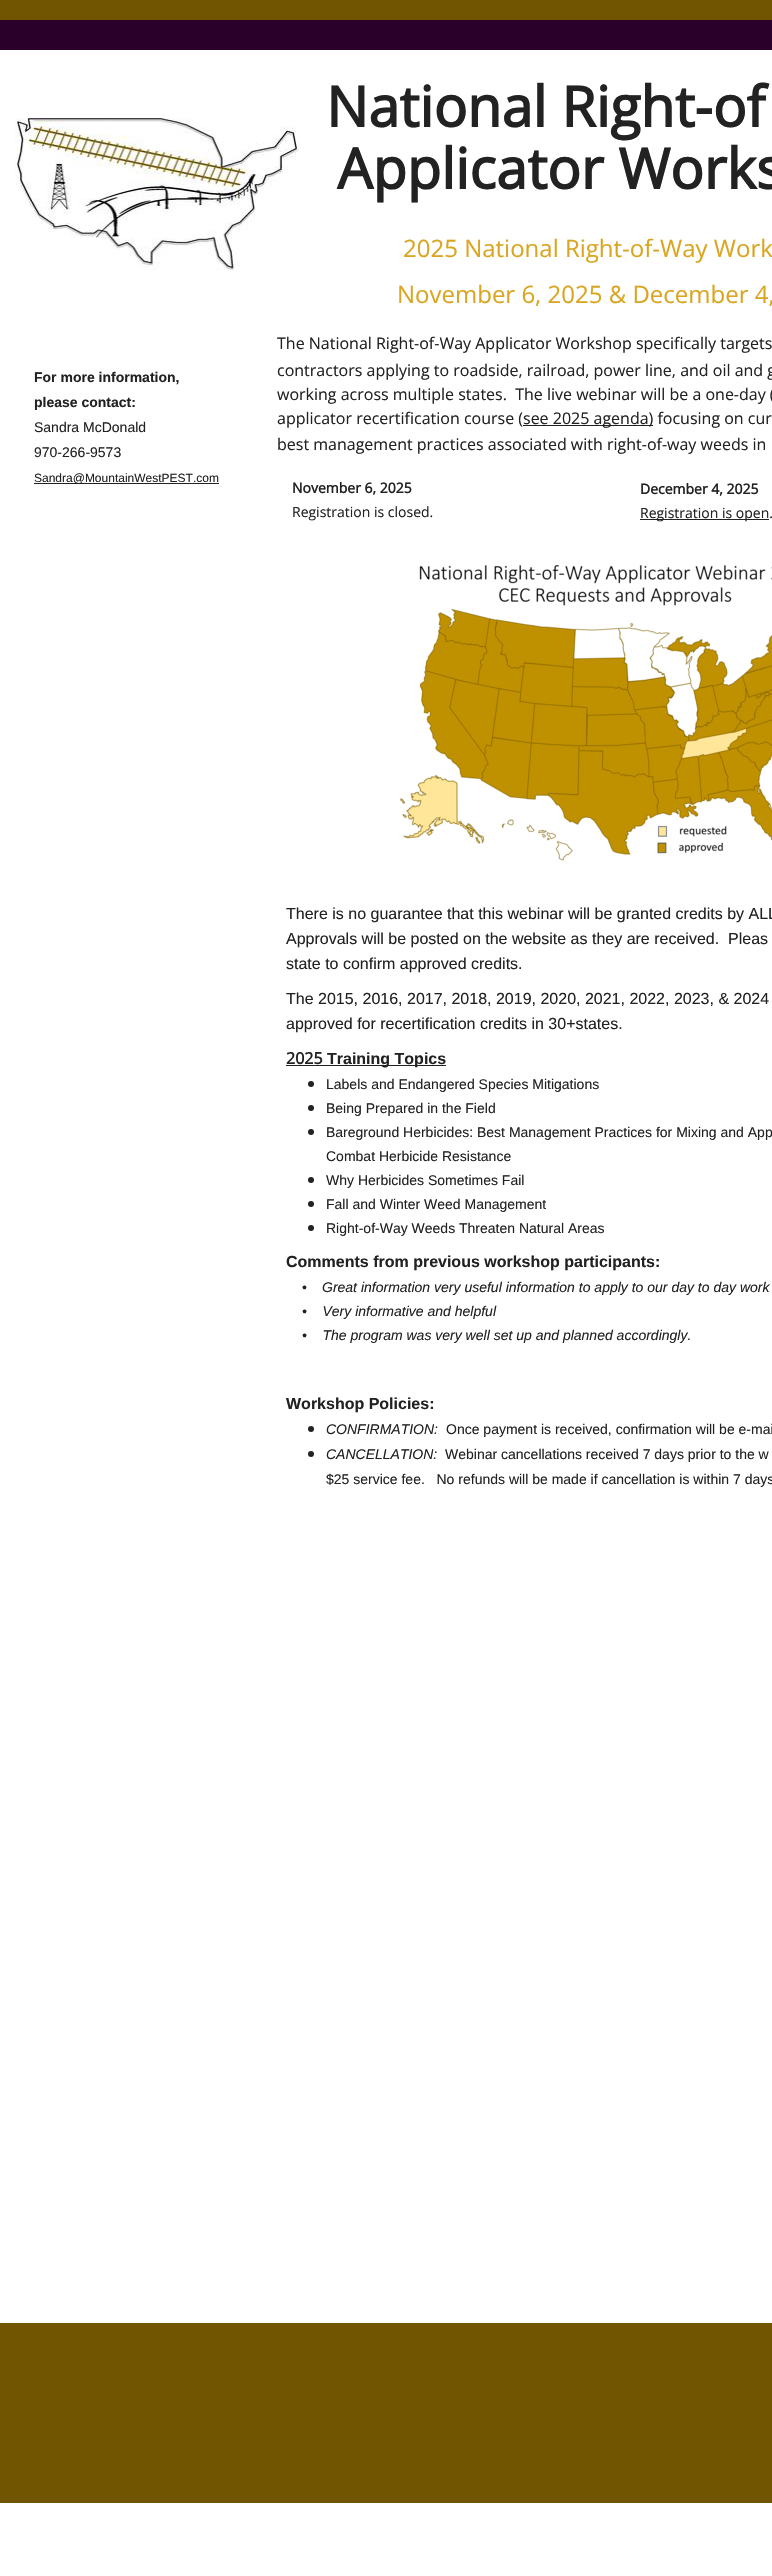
void draw(SkCanvas* canvas) {
    SkPaint paint;
    paint.setAntiAlias(true);
    auto face = [&](const char* family, int weight, float size, bool italic = false) {
        SkFontStyle style(weight, SkFontStyle::kNormal_Width,
            italic ? SkFontStyle::kItalic_Slant : SkFontStyle::kUpright_Slant);
        SkFont result(fontMgr->matchFamilyStyle(family, style), size);
        result.setSubpixel(true);
        return result;
    };
    auto write = [&](const char* s, float x, float y, const SkFont& font, SkColor color) {
        SkPaint ink(SkColor4f::FromColor(color));
        ink.setAntiAlias(true);
        canvas->drawString(s, x, y, font, ink);
    };
    auto block = [&](float x, float y, float w, float h, SkColor color) {
        SkPaint ink(SkColor4f::FromColor(color));
        ink.setAntiAlias(true);
        canvas->drawRect(SkRect::MakeXYWH(x, y, w, h), ink);
    };
    auto paste = [&](const char* path, float x, float y, float w, float h) {
        auto image = SkImages::DeferredFromEncodedData(SkData::MakeFromFileName(path));
        canvas->drawImageRect(image, SkRect::MakeXYWH(x, y, w, h), SkSamplingOptions());
    };
    canvas->clear(SkColorSetRGB(42, 0, 42));
    block(0, 50, 772, 2526, SK_ColorWHITE);
    block(0, 0, 772, 20, SkColorSetRGB(113, 85, 0));
    paste("pic1.png", 15, 118, 284, 152);
    auto kFont1 = face("Open Sans", 700, 56);
    write("National Right-of", 326, 127, kFont1, SkColorSetRGB(34, 34, 34));
    write("Applicator Works", 337, 189, kFont1, SkColorSetRGB(34, 34, 34));
    auto kFont2 = face("Liberation Sans", 700, 14);
    write("For more information,", 34, 382, kFont2, SkColorSetRGB(34, 34, 34));
    write("please contact:", 34, 407, kFont2, SkColorSetRGB(34, 34, 34));
    auto kFont3 = face("Liberation Sans", 400, 14);
    write("Sandra McDonald", 34, 432, kFont3, SkColorSetRGB(34, 34, 34));
    write("970-266-9573", 34, 457, kFont3, SkColorSetRGB(34, 34, 34));
    block(34, 483, 185, 1, SkColorSetRGB(34, 34, 34));
    auto kFont4 = face("Liberation Sans", 400, 12);
    write("Sandra@MountainWestPEST.com", 34, 482, kFont4, SkColorSetRGB(34, 34, 34));
    auto kFont5 = face("Open Sans", 400, 24);
    write("2025 National Right-of-Way Work", 403, 257, kFont5, SkColorSetRGB(218, 165, 32));
    write("November 6, 2025 & December 4,", 397, 303, kFont5, SkColorSetRGB(218, 165, 32));
    auto kFont6 = face("Open Sans", 400, 16);
    write("The National Right-of-Way Applicator Workshop specifically targets", 277, 349, kFont6, SkColorSetRGB(34, 34, 34));
    write("contractors applying to roadside, railroad, power line, and oil and g", 277, 376, kFont6, SkColorSetRGB(34, 34, 34));
    write("working across multiple states.  The live webinar will be a one-day (", 277, 400, kFont6, SkColorSetRGB(34, 34, 34));
    write("applicator recertification course (", 277, 424, kFont6, SkColorSetRGB(34, 34, 34));
    block(523, 425, 130, 1, SkColorSetRGB(34, 34, 34));
    write("see 2025 agenda) focusing on cur", 523, 424, kFont6, SkColorSetRGB(34, 34, 34));
    write("best management practices associated with right-of-way weeds in", 277, 450, kFont6, SkColorSetRGB(34, 34, 34));
    auto kFont7 = face("Open Sans", 700, 14);
    write("November 6, 2025", 292, 493, kFont7, SkColorSetRGB(34, 34, 34));
    auto kFont8 = face("Open Sans", 400, 14);
    write("Registration is closed.", 292, 517, kFont8, SkColorSetRGB(34, 34, 34));
    write("December 4, 2025", 640, 494, kFont7, SkColorSetRGB(34, 34, 34));
    block(640, 519, 129, 1, SkColorSetRGB(34, 34, 34));
    write("Registration is open.", 640, 518, kFont8, SkColorSetRGB(34, 34, 34));
    paste("pic2.png", 400, 564, 372, 297);
    auto kFont9 = face("Liberation Sans", 400, 16);
    write("There is no guarantee that this webinar will be granted credits by ALL", 286, 919, kFont9, SkColorSetRGB(34, 34, 34));
    write("Approvals will be posted on the website as they are received.  Pleas", 286, 944, kFont9, SkColorSetRGB(34, 34, 34));
    write("state to confirm approved credits.", 286, 969, kFont9, SkColorSetRGB(34, 34, 34));
    write("The 2015, 2016, 2017, 2018, 2019, 2020, 2021, 2022, 2023, & 2024", 286, 1004, kFont9, SkColorSetRGB(34, 34, 34));
    write("approved for recertification credits in 30+states.", 286, 1029, kFont9, SkColorSetRGB(34, 34, 34));
    auto kFont10 = face("Open Sans", 700, 16);
    write("2025", 286, 1064, kFont10, SkColorSetRGB(34, 34, 34));
    block(286, 1065, 160, 1, SkColorSetRGB(34, 34, 34));
    auto kFont11 = face("Liberation Sans", 700, 16);
    write("Training Topics", 327, 1064, kFont11, SkColorSetRGB(34, 34, 34));
    paint.setColor(SkColorSetRGB(34, 34, 34));
    canvas->drawCircle(311, 1084, 3, paint);
    write("Labels and Endangered Species Mitigations", 326, 1089, kFont3, SkColorSetRGB(34, 34, 34));
    canvas->drawCircle(311, 1108, 3, paint);
    write("Being Prepared in the Field", 326, 1113, kFont3, SkColorSetRGB(34, 34, 34));
    canvas->drawCircle(311, 1132, 3, paint);
    write("Bareground Herbicides: Best Management Practices for Mixing and App", 326, 1137, kFont3, SkColorSetRGB(34, 34, 34));
    write("Combat Herbicide Resistance", 326, 1161, kFont3, SkColorSetRGB(34, 34, 34));
    canvas->drawCircle(311, 1180, 3, paint);
    write("Why Herbicides Sometimes Fail", 326, 1185, kFont3, SkColorSetRGB(34, 34, 34));
    canvas->drawCircle(311, 1204, 3, paint);
    write("Fall and Winter Weed Management", 326, 1209, kFont3, SkColorSetRGB(34, 34, 34));
    canvas->drawCircle(311, 1228, 3, paint);
    write("Right-of-Way Weeds Threaten Natural Areas", 326, 1233, kFont3, SkColorSetRGB(34, 34, 34));
    write("Comments from previous workshop participants:", 286, 1267, kFont11, SkColorSetRGB(34, 34, 34));
    write("•", 302, 1292, kFont3, SkColorSetRGB(34, 34, 34));
    auto kFont12 = face("Liberation Sans", 400, 14, true);
    write("Great information very useful information to apply to our day to day work", 322, 1292, kFont12, SkColorSetRGB(34, 34, 34));
    write("•    Very informative and helpful", 302, 1316, kFont12, SkColorSetRGB(34, 34, 34));
    write("•    The program was very well set up and planned accordingly.", 302, 1340, kFont12, SkColorSetRGB(34, 34, 34));
    write("Workshop Policies:", 286, 1409, kFont11, SkColorSetRGB(34, 34, 34));
    canvas->drawCircle(311, 1429, 3, paint);
    write("CONFIRMATION:", 326, 1434, kFont12, SkColorSetRGB(34, 34, 34));
    write("Once payment is received, confirmation will be e-mai", 446, 1434, kFont3, SkColorSetRGB(34, 34, 34));
    canvas->drawCircle(311, 1454, 3, paint);
    write("CANCELLATION:", 326, 1459, kFont12, SkColorSetRGB(34, 34, 34));
    write("Webinar cancellations received 7 days prior to the w", 445, 1459, kFont3, SkColorSetRGB(34, 34, 34));
    write("$25 service fee.   No refunds will be made if cancellation is within 7 days", 326, 1484, kFont3, SkColorSetRGB(34, 34, 34));
    block(0, 2323, 772, 180, SkColorSetRGB(113, 85, 0));
}
